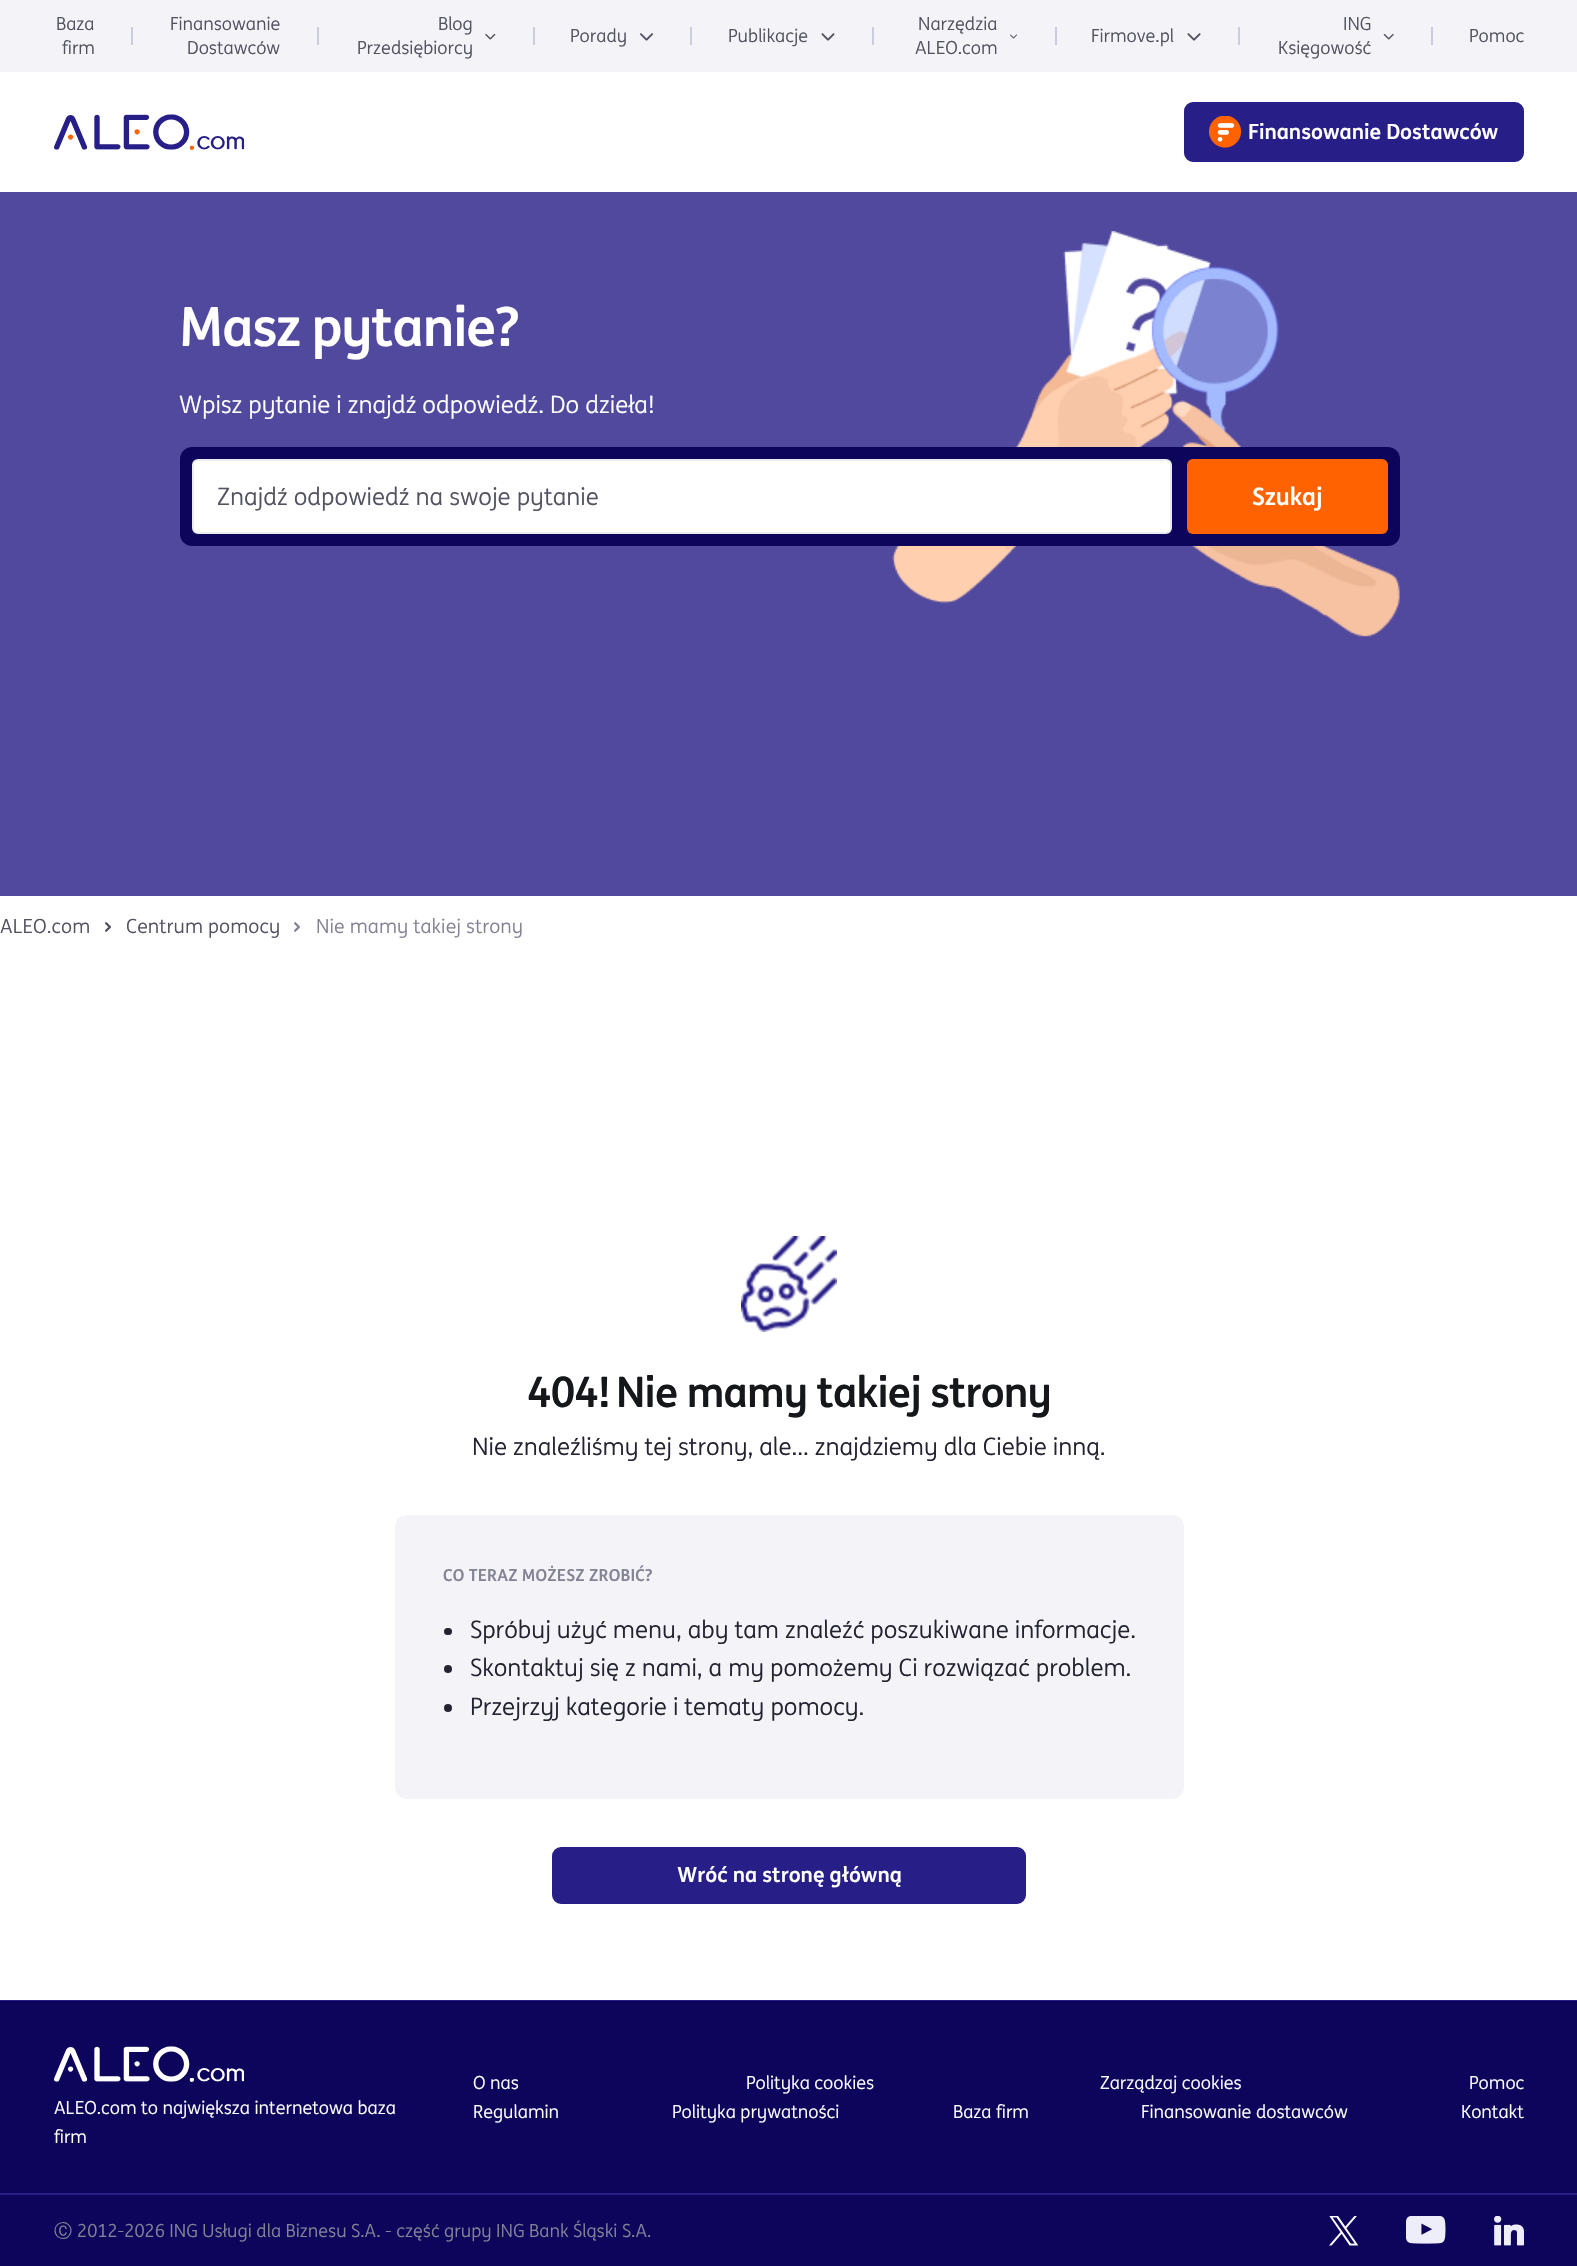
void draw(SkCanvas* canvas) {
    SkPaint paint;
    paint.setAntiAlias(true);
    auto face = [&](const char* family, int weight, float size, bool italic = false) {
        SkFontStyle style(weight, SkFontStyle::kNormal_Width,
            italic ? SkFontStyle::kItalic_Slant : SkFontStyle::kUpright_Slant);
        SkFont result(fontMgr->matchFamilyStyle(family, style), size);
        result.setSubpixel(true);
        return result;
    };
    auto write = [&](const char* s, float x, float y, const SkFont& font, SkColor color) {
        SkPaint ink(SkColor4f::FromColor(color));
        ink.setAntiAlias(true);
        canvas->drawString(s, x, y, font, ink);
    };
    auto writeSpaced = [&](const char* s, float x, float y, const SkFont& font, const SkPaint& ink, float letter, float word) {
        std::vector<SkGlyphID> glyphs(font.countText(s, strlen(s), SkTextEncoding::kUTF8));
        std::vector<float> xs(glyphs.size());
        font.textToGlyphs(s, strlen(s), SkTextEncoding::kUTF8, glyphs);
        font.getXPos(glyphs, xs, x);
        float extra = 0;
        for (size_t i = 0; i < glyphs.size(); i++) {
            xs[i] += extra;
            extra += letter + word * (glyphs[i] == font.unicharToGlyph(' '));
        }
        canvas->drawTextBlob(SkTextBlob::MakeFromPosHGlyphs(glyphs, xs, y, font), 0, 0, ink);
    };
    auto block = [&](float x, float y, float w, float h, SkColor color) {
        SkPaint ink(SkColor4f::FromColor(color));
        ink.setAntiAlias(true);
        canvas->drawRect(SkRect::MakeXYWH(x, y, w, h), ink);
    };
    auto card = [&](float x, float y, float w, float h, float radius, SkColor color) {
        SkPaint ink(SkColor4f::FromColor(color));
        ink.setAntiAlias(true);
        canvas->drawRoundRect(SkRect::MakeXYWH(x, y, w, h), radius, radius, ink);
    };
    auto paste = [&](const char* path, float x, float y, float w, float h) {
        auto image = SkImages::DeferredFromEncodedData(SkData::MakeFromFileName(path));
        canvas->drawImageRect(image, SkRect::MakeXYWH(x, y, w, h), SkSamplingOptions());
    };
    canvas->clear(SK_ColorWHITE);
    block(0, 0, 1577, 72, SkColorSetRGB(244, 244, 248));
    auto kFont1 = face("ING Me", 400, 18);
    write("Baza", 56, 30, kFont1, SkColorSetRGB(82, 82, 97));
    write("firm", 62, 54, kFont1, SkColorSetRGB(82, 82, 97));
    block(131, 27, 2, 18, SkColorSetRGB(203, 204, 225));
    write("Finansowanie", 170, 30, kFont1, SkColorSetRGB(82, 82, 97));
    write("Dostawców", 187, 54, kFont1, SkColorSetRGB(82, 82, 97));
    block(317, 27, 2, 18, SkColorSetRGB(203, 204, 225));
    write("Blog", 438, 30, kFont1, SkColorSetRGB(82, 82, 97));
    paste("pic1.png", 485, 33, 11, 7);
    write("Przedsiębiorcy", 357, 54, kFont1, SkColorSetRGB(82, 82, 97));
    block(533, 27, 2, 18, SkColorSetRGB(203, 204, 225));
    write("Porady", 570, 42, kFont1, SkColorSetRGB(82, 82, 97));
    paste("pic2.png", 640, 33, 13, 8);
    block(690, 27, 2, 18, SkColorSetRGB(203, 204, 225));
    write("Publikacje", 728, 42, kFont1, SkColorSetRGB(82, 82, 97));
    paste("pic3.png", 821, 33, 14, 8);
    block(872, 27, 2, 18, SkColorSetRGB(203, 204, 225));
    write("Narzędzia", 918, 30, kFont1, SkColorSetRGB(82, 82, 97));
    paste("pic4.png", 1010, 34, 7, 5);
    write("ALEO.com", 915, 54, kFont1, SkColorSetRGB(82, 82, 97));
    block(1055, 27, 2, 18, SkColorSetRGB(203, 204, 225));
    write("Firmove.pl", 1091, 42, kFont1, SkColorSetRGB(82, 82, 97));
    paste("pic3.png", 1187, 33, 14, 8);
    block(1238, 27, 2, 18, SkColorSetRGB(203, 204, 225));
    write("ING", 1343, 30, kFont1, SkColorSetRGB(82, 82, 97));
    paste("pic5.png", 1383, 33, 11, 7);
    write("Księgowość", 1278, 54, kFont1, SkColorSetRGB(82, 82, 97));
    block(1431, 27, 2, 18, SkColorSetRGB(203, 204, 225));
    write("Pomoc", 1469, 42, kFont1, SkColorSetRGB(82, 82, 97));
    paste("pic6.png", 54, 114, 191, 36);
    paint.setColor(SkColorSetRGB(39, 30, 135));
    canvas->drawRoundRect(SkRect::MakeXYWH(1185, 103, 338, 58), 8, 8, paint);
    paint.setStyle(SkPaint::kStroke_Style);
    paint.setStrokeWidth(2);
    canvas->drawRoundRect(SkRect::MakeXYWH(1185, 103, 338, 58), 8, 8, paint);
    paste("pic7.png", 1209, 116, 33, 32);
    auto kFont2 = face("ING Me", 700, 21);
    write("Finansowanie Dostawców", 1248, 139, kFont2, SK_ColorWHITE);
    block(0, 192, 1577, 704, SkColorSetRGB(81, 73, 158));
    paste("pic8.png", 892, 231, 508, 406);
    auto kFont3 = face("ING Me", 700, 54);
    paint.setStyle(SkPaint::kFill_Style);
    paint.setColor(SK_ColorWHITE);
    writeSpaced("Masz pytanie?", 179, 346, kFont3, paint, -1.1f, 0);
    auto kFont4 = face("ING Me", 400, 24);
    write("Wpisz pytanie i znajdź odpowiedź. Do dzieła!", 179, 413, kFont4, SK_ColorWHITE);
    card(180, 447, 1220, 99, 12, SkColorSetRGB(13, 5, 92));
    canvas->drawRoundRect(SkRect::MakeXYWH(193, 460, 978, 73), 5, 5, paint);
    paint.setStyle(SkPaint::kStroke_Style);
    paint.setColor(SkColorSetRGB(235, 236, 237));
    canvas->drawRoundRect(SkRect::MakeXYWH(193, 460, 978, 73), 5, 5, paint);
    write("Znajdź odpowiedź na swoje pytanie", 217, 505, kFont4, SkColorSetRGB(82, 82, 97));
    card(1187, 459, 201, 75, 6, SkColorSetRGB(255, 98, 0));
    auto kFont5 = face("ING Me", 700, 24);
    write("Szukaj", 1252, 505, kFont5, SK_ColorWHITE);
    auto kFont6 = face("ING Me", 400, 19.5f);
    paint.setStyle(SkPaint::kFill_Style);
    paint.setColor(SkColorSetRGB(82, 82, 97));
    writeSpaced("ALEO.com", 0, 933, kFont6, paint, 0.1f, 0);
    paste("pic9.png", 105, 922, 6, 10);
    writeSpaced("Centrum pomocy", 126, 933, kFont6, paint, 0.1f, 0);
    paste("pic10.png", 294, 922, 6, 10);
    paint.setColor(SkColorSetRGB(131, 131, 149));
    writeSpaced("Nie mamy takiej strony", 316, 933, kFont6, paint, 0.1f, 0);
    paste("pic11.png", 741, 1236, 96, 96);
    auto kFont7 = face("ING Me", 700, 42);
    paint.setColor(SkColorSetRGB(21, 23, 26));
    writeSpaced("404!", 527, 1407, kFont7, paint, -0.8f, 0);
    writeSpaced("Nie mamy takiej strony", 616, 1407, kFont7, paint, -0.8f, 0);
    write("Nie znaleźliśmy tej strony, ale... znajdziemy dla Ciebie inną.", 472, 1455, kFont4, SkColorSetRGB(35, 35, 50));
    card(395, 1515, 789, 284, 12, SkColorSetRGB(244, 244, 248));
    auto kFont8 = face("ING Me", 700, 16.5f);
    paint.setColor(SkColorSetRGB(131, 131, 149));
    writeSpaced("CO TERAZ MOŻESZ ZROBIĆ?", 443, 1581, kFont8, paint, 0.2f, 0);
    card(444, 1628, 8, 7, 3.5f, SkColorSetRGB(35, 35, 50));
    write("Spróbuj użyć menu, aby tam znaleźć poszukiwane informacje.", 470, 1638, kFont4, SkColorSetRGB(35, 35, 50));
    paint.setColor(SkColorSetRGB(35, 35, 50));
    canvas->drawCircle(448, 1669, 4, paint);
    write("Skontaktuj się z nami, a my pomożemy Ci rozwiązać problem.", 470, 1676, kFont4, SkColorSetRGB(35, 35, 50));
    canvas->drawCircle(448, 1708, 4, paint);
    write("Przejrzyj kategorie i tematy pomocy.", 470, 1715, kFont4, SkColorSetRGB(35, 35, 50));
    paint.setColor(SkColorSetRGB(39, 30, 135));
    canvas->drawRoundRect(SkRect::MakeXYWH(553, 1848, 472, 55), 8, 8, paint);
    paint.setStyle(SkPaint::kStroke_Style);
    canvas->drawRoundRect(SkRect::MakeXYWH(553, 1848, 472, 55), 8, 8, paint);
    write("Wróć na stronę główną", 677, 1882, kFont2, SK_ColorWHITE);
    block(0, 2195, 1577, 71, SkColorSetRGB(13, 5, 92));
    block(0, 2000, 1577, 1, SkColorSetRGB(39, 30, 135));
    block(0, 2001, 1577, 192, SkColorSetRGB(13, 5, 92));
    paste("pic12.png", 54, 2046, 190, 36);
    write("ALEO.com to największa internetowa baza", 54, 2114, kFont1, SK_ColorWHITE);
    write("firm", 54, 2143, kFont1, SK_ColorWHITE);
    write("O nas", 473, 2089, kFont1, SK_ColorWHITE);
    write("Polityka cookies", 746, 2089, kFont1, SK_ColorWHITE);
    write("Zarządzaj cookies", 1100, 2089, kFont1, SK_ColorWHITE);
    write("Pomoc", 1469, 2089, kFont1, SK_ColorWHITE);
    write("Regulamin", 473, 2118, kFont1, SK_ColorWHITE);
    write("Polityka prywatności", 672, 2118, kFont1, SK_ColorWHITE);
    write("Baza firm", 953, 2118, kFont1, SK_ColorWHITE);
    write("Finansowanie dostawców", 1141, 2118, kFont1, SK_ColorWHITE);
    write("Kontakt", 1461, 2118, kFont1, SK_ColorWHITE);
    block(0, 2193, 1577, 2, SkColorSetRGB(39, 30, 135));
    auto kFont9 = face("WenQuanYi Zen Hei", 500, 18);
    write("Ⓒ", 54, 2237, kFont9, SkColorSetRGB(131, 131, 149));
    write("2012-2026 ING Usługi dla Biznesu S.A. - część grupy ING Bank Śląski S.A.", 77, 2237, kFont1, SkColorSetRGB(131, 131, 149));
    paste("pic13.png", 1329, 2216, 29, 30);
    paste("pic14.png", 1406, 2216, 40, 28);
    paste("pic15.png", 1494, 2216, 30, 30);
}
